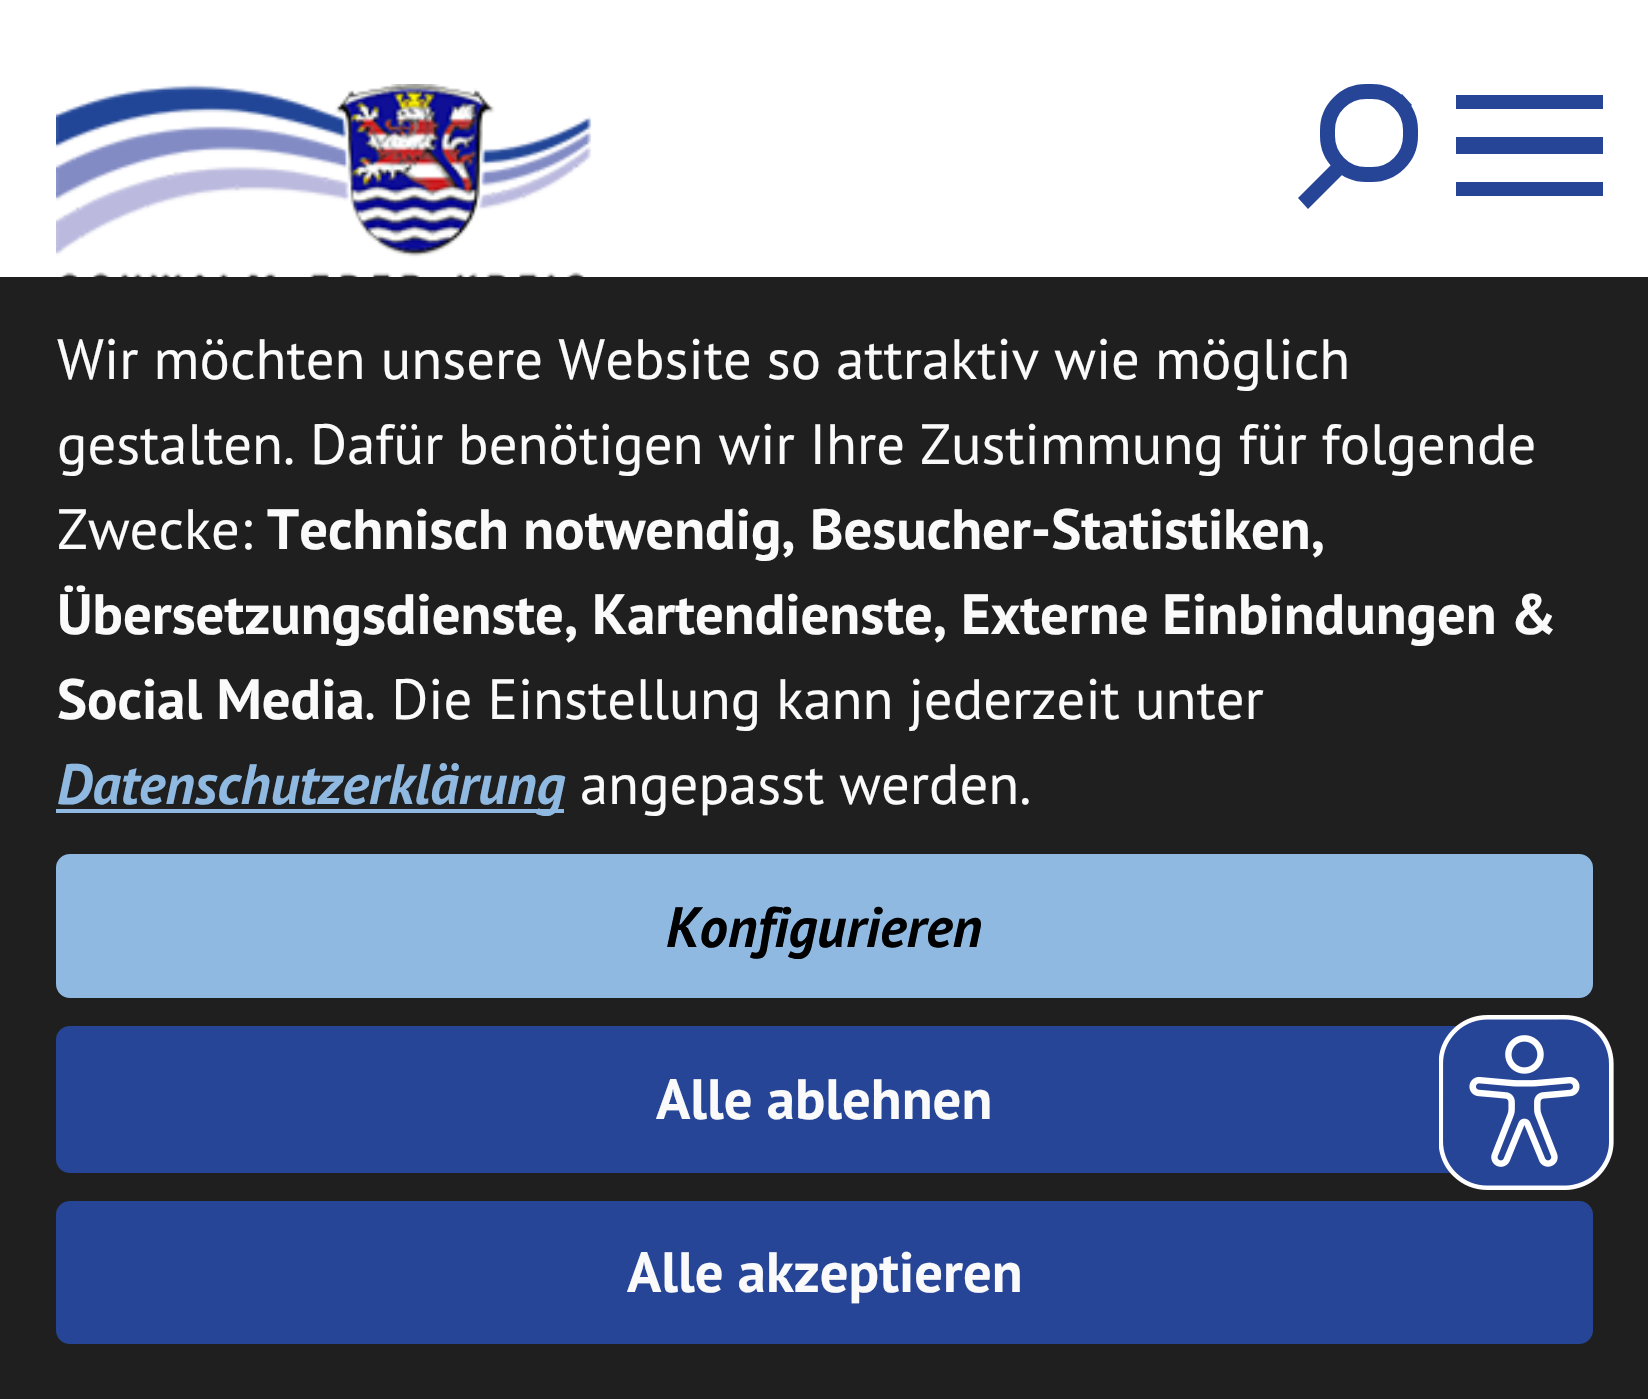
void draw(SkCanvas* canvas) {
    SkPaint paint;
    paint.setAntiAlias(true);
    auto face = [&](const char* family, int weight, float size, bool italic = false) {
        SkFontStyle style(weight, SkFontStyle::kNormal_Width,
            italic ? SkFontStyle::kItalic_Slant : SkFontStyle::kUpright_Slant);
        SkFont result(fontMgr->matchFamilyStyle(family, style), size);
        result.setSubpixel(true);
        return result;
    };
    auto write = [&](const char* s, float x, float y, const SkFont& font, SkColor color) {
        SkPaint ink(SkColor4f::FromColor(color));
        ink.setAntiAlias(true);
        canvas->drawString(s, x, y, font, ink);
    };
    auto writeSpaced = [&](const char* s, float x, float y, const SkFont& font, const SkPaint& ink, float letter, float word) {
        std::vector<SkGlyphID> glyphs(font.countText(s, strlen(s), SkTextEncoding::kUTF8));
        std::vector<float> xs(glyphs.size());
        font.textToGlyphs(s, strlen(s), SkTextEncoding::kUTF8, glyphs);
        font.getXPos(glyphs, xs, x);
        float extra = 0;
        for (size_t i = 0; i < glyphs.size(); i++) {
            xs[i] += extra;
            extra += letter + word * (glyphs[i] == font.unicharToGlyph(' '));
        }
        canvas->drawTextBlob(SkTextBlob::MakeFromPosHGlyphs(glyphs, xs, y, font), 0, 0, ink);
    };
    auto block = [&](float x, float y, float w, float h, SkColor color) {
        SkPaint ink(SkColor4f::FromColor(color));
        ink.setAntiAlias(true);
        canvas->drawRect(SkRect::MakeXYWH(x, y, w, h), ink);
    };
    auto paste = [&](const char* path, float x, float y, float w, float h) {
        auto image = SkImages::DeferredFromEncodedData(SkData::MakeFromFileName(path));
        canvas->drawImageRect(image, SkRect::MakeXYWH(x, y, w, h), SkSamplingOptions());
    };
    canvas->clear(SK_ColorWHITE);
    paste("pic1.png", 56, 84, 536, 193);
    paint.setColor(SkColorSetRGB(38, 69, 151));
    canvas->drawPath(SkPathBuilder().moveTo(1298, 198).lineTo(1402, 94).lineTo(1412, 105).lineTo(1308, 209).close().detach(), paint);
    paint.setColor(SK_ColorWHITE);
    canvas->drawRoundRect(SkRect::MakeXYWH(1327.5f, 91.5f, 83, 83), 38.5f, 38.5f, paint);
    paint.setStyle(SkPaint::kStroke_Style);
    paint.setStrokeWidth(15);
    paint.setColor(SkColorSetRGB(38, 69, 151));
    canvas->drawRoundRect(SkRect::MakeXYWH(1327.5f, 91.5f, 83, 83), 38.5f, 38.5f, paint);
    block(1456, 137, 147, 17, SkColorSetRGB(38, 69, 151));
    block(1456, 95, 147, 14, SkColorSetRGB(38, 69, 151));
    block(1456, 182, 147, 14, SkColorSetRGB(38, 69, 151));
    block(0, 277, 1648, 1122, SkColorSetRGB(31, 31, 31));
    auto kFont1 = face("PT Sans", 400, 56.7f);
    write("Wir möchten unsere Website so attraktiv wie möglich", 57, 379, kFont1, SkColorSetRGB(250, 250, 250));
    paint.setStyle(SkPaint::kFill_Style);
    paint.setColor(SkColorSetRGB(250, 250, 250));
    writeSpaced("gestalten. Dafür benötigen wir Ihre Zustimmung für folgende", 57, 464, kFont1, paint, 0, -0.25f);
    write("Zwecke:", 57, 549, kFont1, SkColorSetRGB(250, 250, 250));
    auto kFont2 = face("PT Sans", 700, 56.7f);
    write("Technisch notwendig, Besucher-Statistiken,", 267, 549, kFont2, SkColorSetRGB(250, 250, 250));
    writeSpaced("Übersetzungsdienste, Kartendienste, Externe Einbindungen &", 57, 634, kFont2, paint, 0, -0.5f);
    write("Social Media", 57, 719, kFont2, SkColorSetRGB(250, 250, 250));
    write(". Die Einstellung kann jederzeit unter", 364, 719, kFont1, SkColorSetRGB(250, 250, 250));
    block(56, 809, 508, 4, SkColorSetRGB(143, 185, 225));
    auto kFont3 = face("PT Sans", 700, 56.7f, true);
    write("Datenschutzerklärung", 57, 804, kFont3, SkColorSetRGB(143, 185, 225));
    write("angepasst werden.", 580, 804, kFont1, SkColorSetRGB(250, 250, 250));
    paint.setColor(SkColorSetRGB(143, 185, 225));
    canvas->drawRoundRect(SkRect::MakeXYWH(59.5f, 857.5f, 1530, 137), 10.5f, 10.5f, paint);
    paint.setStyle(SkPaint::kStroke_Style);
    paint.setStrokeWidth(7);
    canvas->drawRoundRect(SkRect::MakeXYWH(59.5f, 857.5f, 1530, 137), 10.5f, 10.5f, paint);
    write("Konfigurieren", 666, 947, kFont3, SK_ColorBLACK);
    paint.setStyle(SkPaint::kFill_Style);
    paint.setColor(SkColorSetRGB(38, 69, 151));
    canvas->drawRoundRect(SkRect::MakeXYWH(59.5f, 1029.5f, 1530, 140), 10.5f, 10.5f, paint);
    paint.setStyle(SkPaint::kStroke_Style);
    canvas->drawRoundRect(SkRect::MakeXYWH(59.5f, 1029.5f, 1530, 140), 10.5f, 10.5f, paint);
    write("Alle ablehnen", 656, 1119, kFont2, SkColorSetRGB(250, 250, 250));
    paint.setStyle(SkPaint::kFill_Style);
    canvas->drawRoundRect(SkRect::MakeXYWH(59.5f, 1204.5f, 1530, 136), 10.5f, 10.5f, paint);
    paint.setStyle(SkPaint::kStroke_Style);
    canvas->drawRoundRect(SkRect::MakeXYWH(59.5f, 1204.5f, 1530, 136), 10.5f, 10.5f, paint);
    write("Alle akzeptieren", 627, 1292, kFont2, SkColorSetRGB(250, 250, 250));
    paste("pic2.png", 1439, 1015, 175, 175);
}
